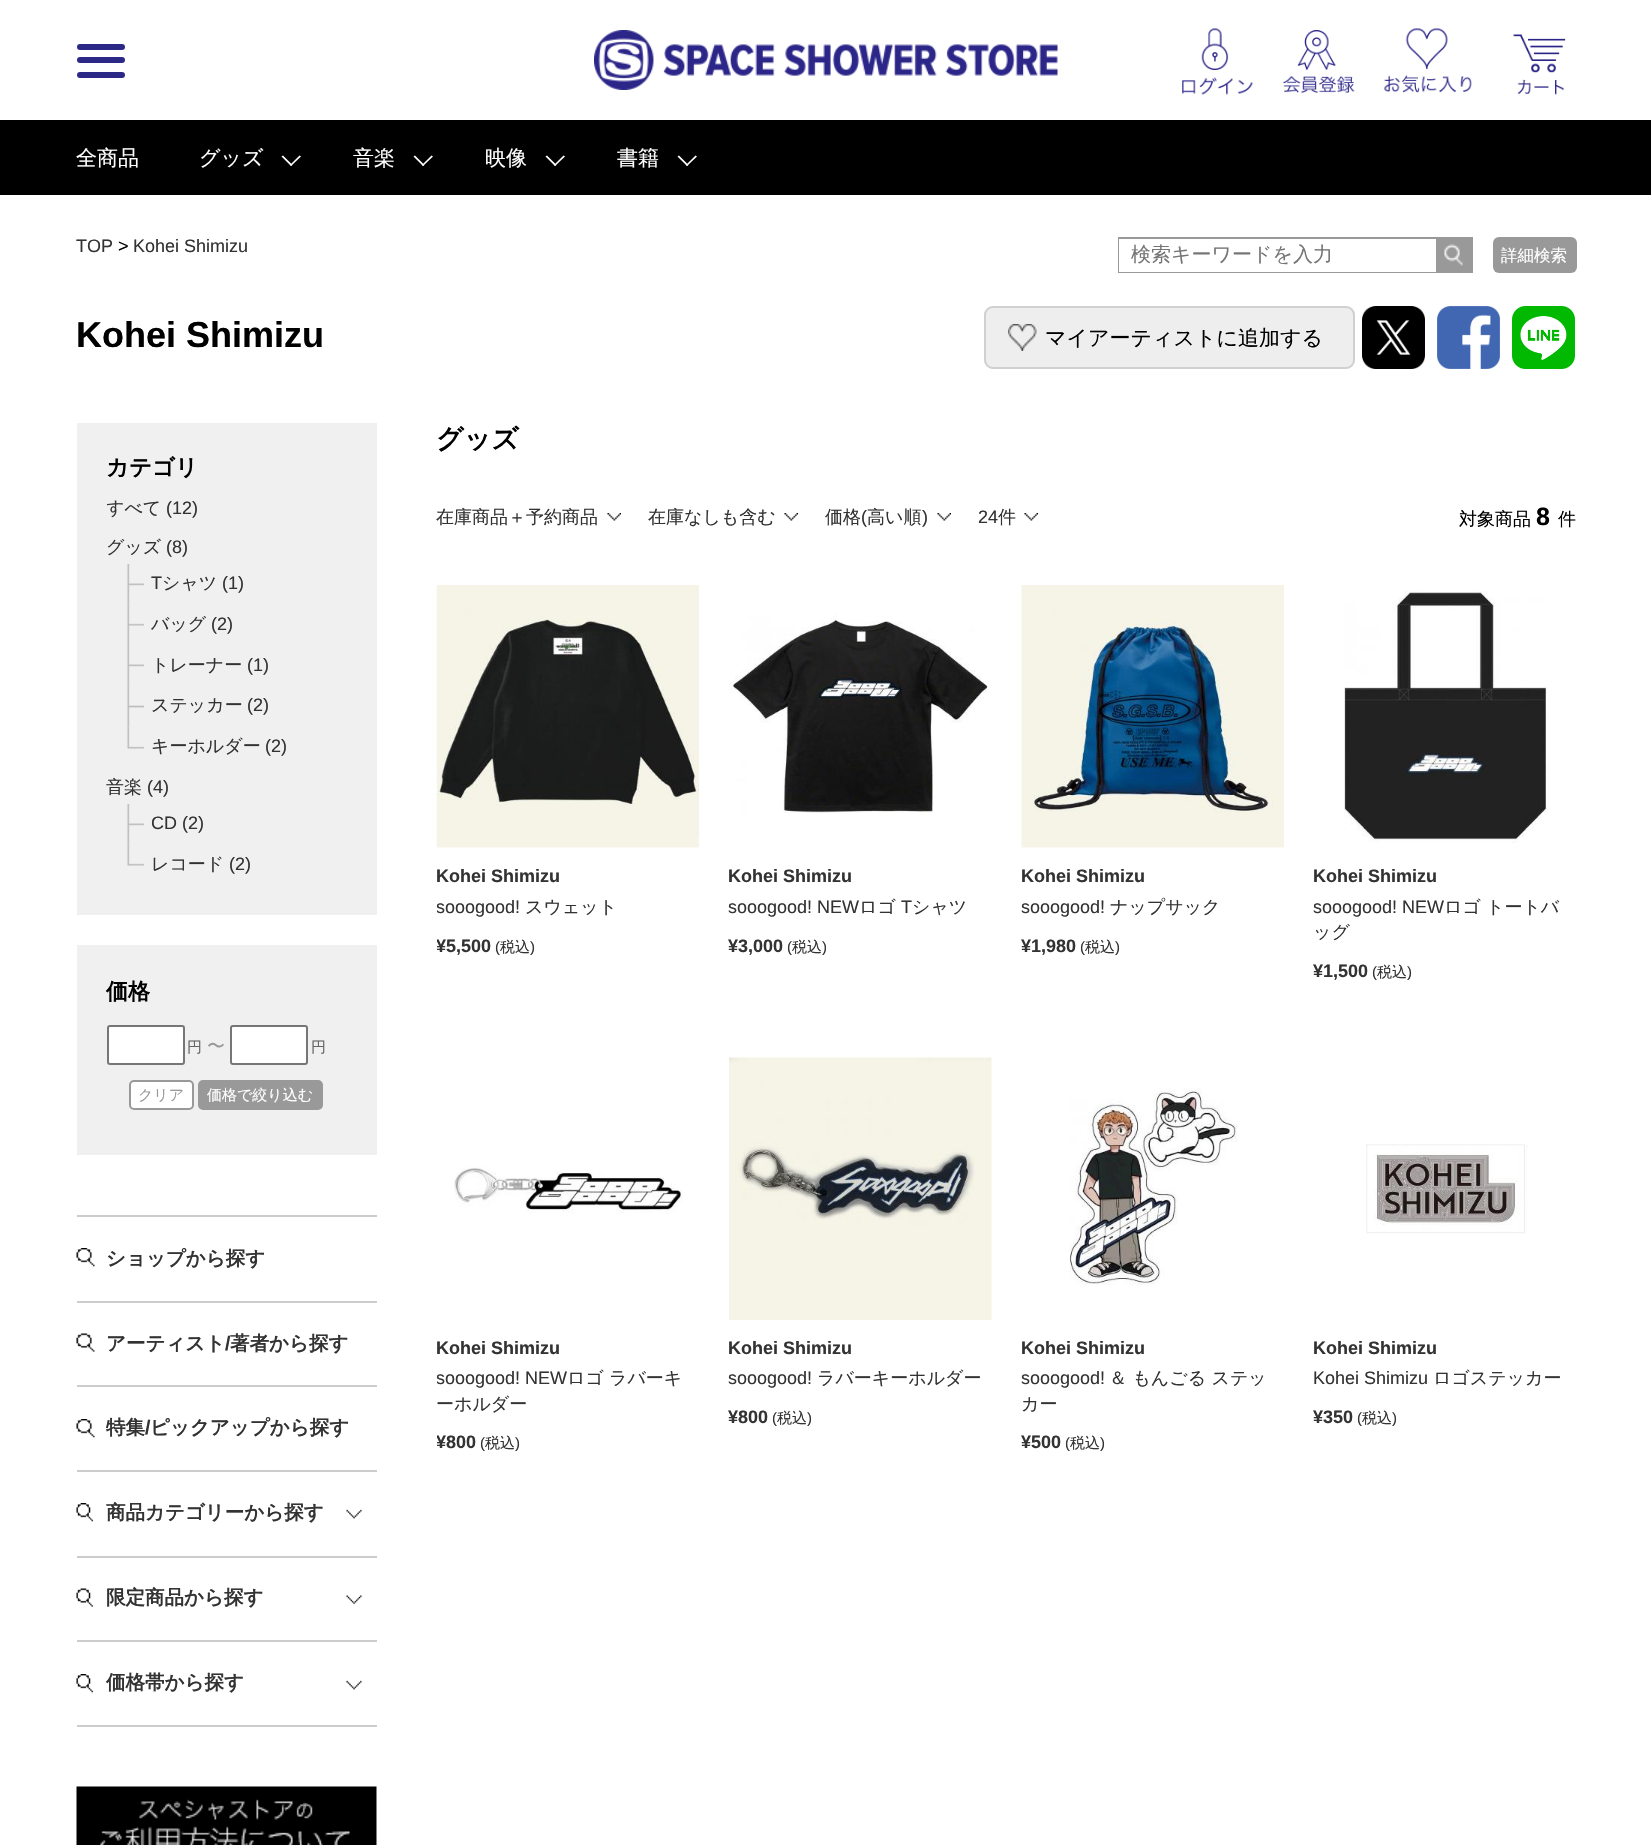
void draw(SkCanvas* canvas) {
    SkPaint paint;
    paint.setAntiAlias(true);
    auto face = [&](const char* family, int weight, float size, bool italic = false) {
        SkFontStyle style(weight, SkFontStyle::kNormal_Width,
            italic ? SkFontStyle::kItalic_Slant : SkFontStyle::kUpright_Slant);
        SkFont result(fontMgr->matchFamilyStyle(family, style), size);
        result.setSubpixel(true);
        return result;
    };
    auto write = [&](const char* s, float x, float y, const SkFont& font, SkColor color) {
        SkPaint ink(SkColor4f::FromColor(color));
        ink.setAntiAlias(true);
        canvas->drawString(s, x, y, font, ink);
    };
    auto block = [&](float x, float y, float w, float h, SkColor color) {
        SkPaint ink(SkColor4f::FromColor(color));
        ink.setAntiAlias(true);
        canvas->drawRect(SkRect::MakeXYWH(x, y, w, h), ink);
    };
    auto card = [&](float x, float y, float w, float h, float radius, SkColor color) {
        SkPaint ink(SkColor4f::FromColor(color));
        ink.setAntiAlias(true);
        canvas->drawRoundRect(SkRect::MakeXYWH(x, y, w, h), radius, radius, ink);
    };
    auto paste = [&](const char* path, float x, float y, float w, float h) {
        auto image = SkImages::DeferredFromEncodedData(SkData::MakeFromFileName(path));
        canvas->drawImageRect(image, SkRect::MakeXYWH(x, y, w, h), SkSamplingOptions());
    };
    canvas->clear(SK_ColorWHITE);
    card(77, 44, 48, 6, 3, SkColorSetRGB(44, 41, 134));
    card(77, 57, 48, 6, 3, SkColorSetRGB(44, 41, 134));
    card(77, 72, 48, 6, 3, SkColorSetRGB(44, 41, 134));
    paste("pic1.png", 594, 30, 464, 60);
    paste("pic2.png", 1182, 28, 71, 67);
    paste("pic3.png", 1282, 30, 73, 63);
    paste("pic4.png", 1384, 28, 88, 65);
    paste("pic5.png", 1513, 34, 53, 61);
    block(0, 120, 1651, 75, SK_ColorBLACK);
    auto kFont1 = face("WenQuanYi Zen Hei", 500, 21);
    write("全商品", 76, 165, kFont1, SK_ColorWHITE);
    write("グッズ", 199, 165, kFont1, SK_ColorWHITE);
    paint.setColor(SK_ColorWHITE);
    canvas->drawPath(SkPathBuilder().moveTo(299.5f, 155.5f).lineTo(301, 156.5f).lineTo(291, 166).lineTo(290, 165).close().detach(), paint);
    canvas->drawPath(SkPathBuilder().moveTo(283, 155.5f).lineTo(292.5f, 165).lineTo(291, 166).lineTo(281.5f, 156.5f).close().detach(), paint);
    write("音楽", 353, 165, kFont1, SK_ColorWHITE);
    canvas->drawPath(SkPathBuilder().moveTo(431.5f, 155.5f).lineTo(433, 156.5f).lineTo(423, 166).lineTo(422, 165).close().detach(), paint);
    canvas->drawPath(SkPathBuilder().moveTo(415, 155.5f).lineTo(424.5f, 165).lineTo(423, 166).lineTo(413.5f, 156.5f).close().detach(), paint);
    write("映像", 485, 165, kFont1, SK_ColorWHITE);
    canvas->drawPath(SkPathBuilder().moveTo(563.5f, 155.5f).lineTo(565, 156.5f).lineTo(555, 166).lineTo(554, 165).close().detach(), paint);
    canvas->drawPath(SkPathBuilder().moveTo(547, 155.5f).lineTo(556.5f, 165).lineTo(555, 166).lineTo(545.5f, 156.5f).close().detach(), paint);
    write("書籍", 617, 165, kFont1, SK_ColorWHITE);
    canvas->drawPath(SkPathBuilder().moveTo(695.5f, 155.5f).lineTo(697, 156.5f).lineTo(687, 166).lineTo(686, 165).close().detach(), paint);
    canvas->drawPath(SkPathBuilder().moveTo(679, 155.5f).lineTo(688.5f, 165).lineTo(687, 166).lineTo(677.5f, 156.5f).close().detach(), paint);
    auto kFont2 = face("Liberation Sans", 400, 18);
    write("TOP", 76, 252, kFont2, SkColorSetRGB(51, 51, 51));
    write(">", 118, 252, kFont2, SK_ColorBLACK);
    write("Kohei Shimizu", 133, 252, kFont2, SkColorSetRGB(51, 51, 51));
    block(1118, 237, 355, 36, SkColorSetRGB(153, 153, 153));
    block(1119, 239, 317, 33, SK_ColorWHITE);
    auto kFont3 = face("WenQuanYi Zen Hei", 500, 20);
    write("検索キーワードを入力", 1131, 261, kFont3, SkColorSetRGB(117, 117, 117));
    paste("pic6.png", 1444, 244, 19, 22);
    card(1493, 237, 84, 36, 6, SkColorSetRGB(153, 153, 153));
    auto kFont4 = face("WenQuanYi Zen Hei", 500, 16.5f);
    write("詳細検索", 1501, 261, kFont4, SK_ColorWHITE);
    auto kFont5 = face("Liberation Sans", 700, 36);
    write("Kohei Shimizu", 76, 347, kFont5, SK_ColorBLACK);
    card(984, 306, 371, 63, 9, SkColorSetRGB(238, 238, 238));
    paste("pic7.png", 1008, 324, 29, 27);
    paint.setStyle(SkPaint::kStroke_Style);
    paint.setStrokeWidth(2);
    paint.setColor(SkColorSetRGB(208, 208, 208));
    canvas->drawRoundRect(SkRect::MakeXYWH(985, 307, 369, 61), 8, 8, paint);
    write("マイアーティストに追加する", 1045, 345, kFont1, SK_ColorBLACK);
    paste("pic8.png", 1362, 306, 63, 63);
    paste("pic9.png", 1437, 306, 63, 63);
    paste("pic10.png", 1512, 306, 63, 63);
    block(77, 423, 300, 492, SkColorSetRGB(240, 240, 240));
    auto kFont6 = face("WenQuanYi Zen Hei", 700, 22.5f);
    write("カテゴリ", 106, 475, kFont6, SK_ColorBLACK);
    canvas->save();
    canvas->clipRect(SkRect::MakeXYWH(107, 488, 240, 40));
    auto kFont7 = face("WenQuanYi Zen Hei", 500, 18);
    write("すべて", 106, 514, kFont7, SkColorSetRGB(51, 51, 51));
    canvas->restore();
    write("(12)", 166, 514, kFont2, SkColorSetRGB(51, 51, 51));
    write("グッズ", 106, 553, kFont7, SkColorSetRGB(51, 51, 51));
    write("(8)", 166, 553, kFont2, SkColorSetRGB(51, 51, 51));
    paste("pic11.png", 127, 564, 17, 41);
    write("T", 151, 589, kFont2, SkColorSetRGB(51, 51, 51));
    write("シャツ", 162, 589, kFont7, SkColorSetRGB(51, 51, 51));
    write("(1)", 222, 589, kFont2, SkColorSetRGB(51, 51, 51));
    paste("pic12.png", 127, 604, 17, 41);
    write("バッグ", 151, 630, kFont7, SkColorSetRGB(51, 51, 51));
    write("(2)", 211, 630, kFont2, SkColorSetRGB(51, 51, 51));
    paste("pic11.png", 127, 645, 17, 41);
    write("トレーナー", 151, 671, kFont7, SkColorSetRGB(51, 51, 51));
    write("(1)", 247, 671, kFont2, SkColorSetRGB(51, 51, 51));
    paste("pic13.png", 127, 685, 17, 43);
    write("ステッカー", 151, 711, kFont7, SkColorSetRGB(51, 51, 51));
    write("(2)", 247, 711, kFont2, SkColorSetRGB(51, 51, 51));
    paste("pic14.png", 127, 727, 17, 22);
    write("キーホルダー", 151, 752, kFont7, SkColorSetRGB(51, 51, 51));
    write("(2)", 265, 752, kFont2, SkColorSetRGB(51, 51, 51));
    write("音楽", 106, 793, kFont7, SkColorSetRGB(51, 51, 51));
    write("(4)", 147, 793, kFont2, SkColorSetRGB(51, 51, 51));
    paste("pic11.png", 127, 804, 17, 41);
    write("CD (2)", 151, 829, kFont2, SkColorSetRGB(51, 51, 51));
    paste("pic14.png", 127, 844, 17, 22);
    write("レコード", 151, 870, kFont7, SkColorSetRGB(51, 51, 51));
    write("(2)", 229, 870, kFont2, SkColorSetRGB(51, 51, 51));
    block(77, 945, 300, 210, SkColorSetRGB(240, 240, 240));
    auto kFont8 = face("WenQuanYi Zen Hei", 700, 22);
    write("価格", 106, 999, kFont8, SK_ColorBLACK);
    paint.setStyle(SkPaint::kFill_Style);
    paint.setColor(SK_ColorWHITE);
    canvas->drawRoundRect(SkRect::MakeXYWH(108, 1026, 76, 38), 2, 2, paint);
    paint.setStyle(SkPaint::kStroke_Style);
    paint.setColor(SkColorSetRGB(118, 118, 118));
    canvas->drawRoundRect(SkRect::MakeXYWH(108, 1026, 76, 38), 2, 2, paint);
    auto kFont9 = face("WenQuanYi Zen Hei", 500, 15);
    write("円", 187, 1052, kFont9, SkColorSetRGB(102, 102, 102));
    write("〜", 207, 1052, kFont7, SkColorSetRGB(153, 153, 153));
    paint.setStyle(SkPaint::kFill_Style);
    paint.setColor(SK_ColorWHITE);
    canvas->drawRoundRect(SkRect::MakeXYWH(231, 1026, 76, 38), 2, 2, paint);
    paint.setStyle(SkPaint::kStroke_Style);
    paint.setColor(SkColorSetRGB(118, 118, 118));
    canvas->drawRoundRect(SkRect::MakeXYWH(231, 1026, 76, 38), 2, 2, paint);
    write("円", 311, 1052, kFont9, SkColorSetRGB(102, 102, 102));
    paint.setStyle(SkPaint::kFill_Style);
    paint.setColor(SK_ColorWHITE);
    canvas->drawRoundRect(SkRect::MakeXYWH(130, 1081, 63, 28), 4, 4, paint);
    paint.setStyle(SkPaint::kStroke_Style);
    paint.setColor(SkColorSetRGB(153, 153, 153));
    canvas->drawRoundRect(SkRect::MakeXYWH(130, 1081, 63, 28), 4, 4, paint);
    write("クリア", 138, 1100, kFont9, SkColorSetRGB(153, 153, 153));
    paint.setStyle(SkPaint::kFill_Style);
    canvas->drawRoundRect(SkRect::MakeXYWH(199, 1081, 123, 28), 4, 4, paint);
    paint.setStyle(SkPaint::kStroke_Style);
    canvas->drawRoundRect(SkRect::MakeXYWH(199, 1081, 123, 28), 4, 4, paint);
    write("価格で絞り込む", 207, 1100, kFont9, SK_ColorWHITE);
    block(77, 1215, 300, 2, SkColorSetRGB(204, 204, 204));
    block(77, 1301, 300, 2, SkColorSetRGB(204, 204, 204));
    paste("pic15.png", 76, 1248, 19, 19);
    auto kFont10 = face("WenQuanYi Zen Hei", 700, 19.5f);
    write("ショップから探す", 106, 1265, kFont10, SkColorSetRGB(51, 51, 51));
    block(77, 1385, 300, 2, SkColorSetRGB(204, 204, 204));
    paste("pic16.png", 76, 1333, 19, 19);
    write("アーティスト", 106, 1350, kFont10, SkColorSetRGB(51, 51, 51));
    auto kFont11 = face("Liberation Sans", 700, 19.5f);
    write("/", 225, 1350, kFont11, SkColorSetRGB(51, 51, 51));
    write("著者から探す", 230, 1350, kFont10, SkColorSetRGB(51, 51, 51));
    block(77, 1470, 300, 2, SkColorSetRGB(204, 204, 204));
    paste("pic15.png", 76, 1419, 19, 19);
    write("特集", 106, 1434, kFont10, SkColorSetRGB(51, 51, 51));
    write("/", 145, 1434, kFont11, SkColorSetRGB(51, 51, 51));
    write("ピックアップから探す", 150, 1434, kFont10, SkColorSetRGB(51, 51, 51));
    block(77, 1556, 300, 2, SkColorSetRGB(204, 204, 204));
    paste("pic17.png", 76, 1503, 286, 19);
    write("商品カテゴリーから探す", 106, 1519, kFont10, SkColorSetRGB(51, 51, 51));
    block(77, 1640, 300, 2, SkColorSetRGB(204, 204, 204));
    paste("pic18.png", 76, 1588, 286, 19);
    write("限定商品から探す", 106, 1604, kFont10, SkColorSetRGB(51, 51, 51));
    block(77, 1725, 300, 2, SkColorSetRGB(204, 204, 204));
    paste("pic17.png", 76, 1674, 286, 19);
    write("価格帯から探す", 106, 1689, kFont10, SkColorSetRGB(51, 51, 51));
    paste("pic19.png", 76, 1786, 301, 59);
    auto kFont12 = face("WenQuanYi Zen Hei", 700, 27);
    write("グッズ", 436, 448, kFont12, SK_ColorBLACK);
    write("在庫商品＋予約商品", 436, 523, kFont7, SkColorSetRGB(51, 51, 51));
    paste("pic20.png", 607, 513, 14, 8);
    write("在庫なしも含む", 648, 523, kFont7, SkColorSetRGB(51, 51, 51));
    paste("pic21.png", 784, 513, 14, 8);
    write("価格", 825, 523, kFont7, SkColorSetRGB(51, 51, 51));
    write("(", 861, 523, kFont2, SkColorSetRGB(51, 51, 51));
    write("高い順", 867, 523, kFont7, SkColorSetRGB(51, 51, 51));
    write(")", 922, 523, kFont2, SkColorSetRGB(51, 51, 51));
    paste("pic21.png", 937, 513, 14, 8);
    write("24", 978, 523, kFont2, SkColorSetRGB(51, 51, 51));
    write("件", 998, 523, kFont7, SkColorSetRGB(51, 51, 51));
    paste("pic22.png", 1024, 513, 14, 8);
    write("対象商品", 1459, 525, kFont7, SK_ColorBLACK);
    auto kFont13 = face("Liberation Sans", 700, 25);
    write("8", 1536, 525, kFont13, SK_ColorBLACK);
    write("件", 1558, 525, kFont7, SK_ColorBLACK);
    paste("pic23.png", 436, 585, 263, 263);
    auto kFont14 = face("Liberation Sans", 700, 18);
    write("Kohei Shimizu", 436, 882, kFont14, SkColorSetRGB(51, 51, 51));
    canvas->save();
    canvas->clipRect(SkRect::MakeXYWH(437, 585, 1170, 944));
    write("sooogood!", 436, 913, kFont2, SkColorSetRGB(51, 51, 51));
    canvas->restore();
    write("スウェット", 525, 913, kFont7, SkColorSetRGB(51, 51, 51));
    canvas->save();
    canvas->clipRect(SkRect::MakeXYWH(437, 585, 1170, 944));
    write("¥5,500", 436, 952, kFont14, SkColorSetRGB(51, 51, 51));
    canvas->restore();
    auto kFont15 = face("Liberation Sans", 400, 15);
    write("(", 495, 952, kFont15, SkColorSetRGB(51, 51, 51));
    write("税込", 500, 952, kFont9, SkColorSetRGB(51, 51, 51));
    write(")", 530, 952, kFont15, SkColorSetRGB(51, 51, 51));
    paste("pic24.png", 729, 615, 260, 198);
    write("Kohei Shimizu", 728, 882, kFont14, SkColorSetRGB(51, 51, 51));
    write("sooogood! NEW", 728, 913, kFont2, SkColorSetRGB(51, 51, 51));
    write("ロゴ", 859, 913, kFont7, SkColorSetRGB(51, 51, 51));
    write("T", 901, 913, kFont2, SkColorSetRGB(51, 51, 51));
    write("シャツ", 912, 913, kFont7, SkColorSetRGB(51, 51, 51));
    write("¥3,000", 728, 952, kFont14, SkColorSetRGB(51, 51, 51));
    write("(", 787, 952, kFont15, SkColorSetRGB(51, 51, 51));
    write("税込", 792, 952, kFont9, SkColorSetRGB(51, 51, 51));
    write(")", 822, 952, kFont15, SkColorSetRGB(51, 51, 51));
    paste("pic25.png", 1021, 585, 263, 263);
    write("Kohei Shimizu", 1021, 882, kFont14, SkColorSetRGB(51, 51, 51));
    write("sooogood!", 1021, 913, kFont2, SkColorSetRGB(51, 51, 51));
    write("ナップサック", 1110, 913, kFont7, SkColorSetRGB(51, 51, 51));
    write("¥1,980", 1021, 952, kFont14, SkColorSetRGB(51, 51, 51));
    write("(", 1080, 952, kFont15, SkColorSetRGB(51, 51, 51));
    write("税込", 1085, 952, kFont9, SkColorSetRGB(51, 51, 51));
    write(")", 1115, 952, kFont15, SkColorSetRGB(51, 51, 51));
    paste("pic26.png", 1344, 591, 204, 252);
    write("Kohei Shimizu", 1313, 882, kFont14, SkColorSetRGB(51, 51, 51));
    write("sooogood! NEW", 1313, 913, kFont2, SkColorSetRGB(51, 51, 51));
    write("ロゴ", 1444, 913, kFont7, SkColorSetRGB(51, 51, 51));
    write("トートバ", 1486, 913, kFont7, SkColorSetRGB(51, 51, 51));
    write("ッグ", 1313, 938, kFont7, SkColorSetRGB(51, 51, 51));
    write("¥1,500", 1313, 977, kFont14, SkColorSetRGB(51, 51, 51));
    write("(", 1372, 977, kFont15, SkColorSetRGB(51, 51, 51));
    write("税込", 1377, 977, kFont9, SkColorSetRGB(51, 51, 51));
    write(")", 1407, 977, kFont15, SkColorSetRGB(51, 51, 51));
    paste("pic27.png", 454, 1167, 229, 47);
    write("Kohei Shimizu", 436, 1354, kFont14, SkColorSetRGB(51, 51, 51));
    canvas->save();
    canvas->clipRect(SkRect::MakeXYWH(437, 585, 1170, 944));
    write("sooogood! NEW", 436, 1384, kFont2, SkColorSetRGB(51, 51, 51));
    canvas->restore();
    write("ロゴ", 567, 1384, kFont7, SkColorSetRGB(51, 51, 51));
    write("ラバーキ", 609, 1384, kFont7, SkColorSetRGB(51, 51, 51));
    write("ーホルダー", 436, 1410, kFont7, SkColorSetRGB(51, 51, 51));
    canvas->save();
    canvas->clipRect(SkRect::MakeXYWH(437, 585, 1170, 944));
    write("¥800", 436, 1448, kFont14, SkColorSetRGB(51, 51, 51));
    canvas->restore();
    write("(", 480, 1448, kFont15, SkColorSetRGB(51, 51, 51));
    write("税込", 485, 1448, kFont9, SkColorSetRGB(51, 51, 51));
    write(")", 515, 1448, kFont15, SkColorSetRGB(51, 51, 51));
    paste("pic28.png", 729, 1057, 263, 263);
    write("Kohei Shimizu", 728, 1354, kFont14, SkColorSetRGB(51, 51, 51));
    write("sooogood!", 728, 1384, kFont2, SkColorSetRGB(51, 51, 51));
    write("ラバーキーホルダー", 817, 1384, kFont7, SkColorSetRGB(51, 51, 51));
    write("¥800", 728, 1423, kFont14, SkColorSetRGB(51, 51, 51));
    write("(", 772, 1423, kFont15, SkColorSetRGB(51, 51, 51));
    write("税込", 777, 1423, kFont9, SkColorSetRGB(51, 51, 51));
    write(")", 807, 1423, kFont15, SkColorSetRGB(51, 51, 51));
    paste("pic29.png", 1069, 1088, 169, 197);
    write("Kohei Shimizu", 1021, 1354, kFont14, SkColorSetRGB(51, 51, 51));
    write("sooogood!", 1021, 1384, kFont2, SkColorSetRGB(51, 51, 51));
    write("＆ もんごる ステッ", 1109, 1384, kFont7, SkColorSetRGB(51, 51, 51));
    write("カー", 1021, 1410, kFont7, SkColorSetRGB(51, 51, 51));
    write("¥500", 1021, 1448, kFont14, SkColorSetRGB(51, 51, 51));
    write("(", 1065, 1448, kFont15, SkColorSetRGB(51, 51, 51));
    write("税込", 1070, 1448, kFont9, SkColorSetRGB(51, 51, 51));
    write(")", 1100, 1448, kFont15, SkColorSetRGB(51, 51, 51));
    paste("pic30.png", 1366, 1144, 162, 90);
    write("Kohei Shimizu", 1313, 1354, kFont14, SkColorSetRGB(51, 51, 51));
    write("Kohei Shimizu", 1313, 1384, kFont2, SkColorSetRGB(51, 51, 51));
    write("ロゴステッカー", 1433, 1384, kFont7, SkColorSetRGB(51, 51, 51));
    write("¥350", 1313, 1423, kFont14, SkColorSetRGB(51, 51, 51));
    write("(", 1357, 1423, kFont15, SkColorSetRGB(51, 51, 51));
    write("税込", 1362, 1423, kFont9, SkColorSetRGB(51, 51, 51));
    write(")", 1392, 1423, kFont15, SkColorSetRGB(51, 51, 51));
}
